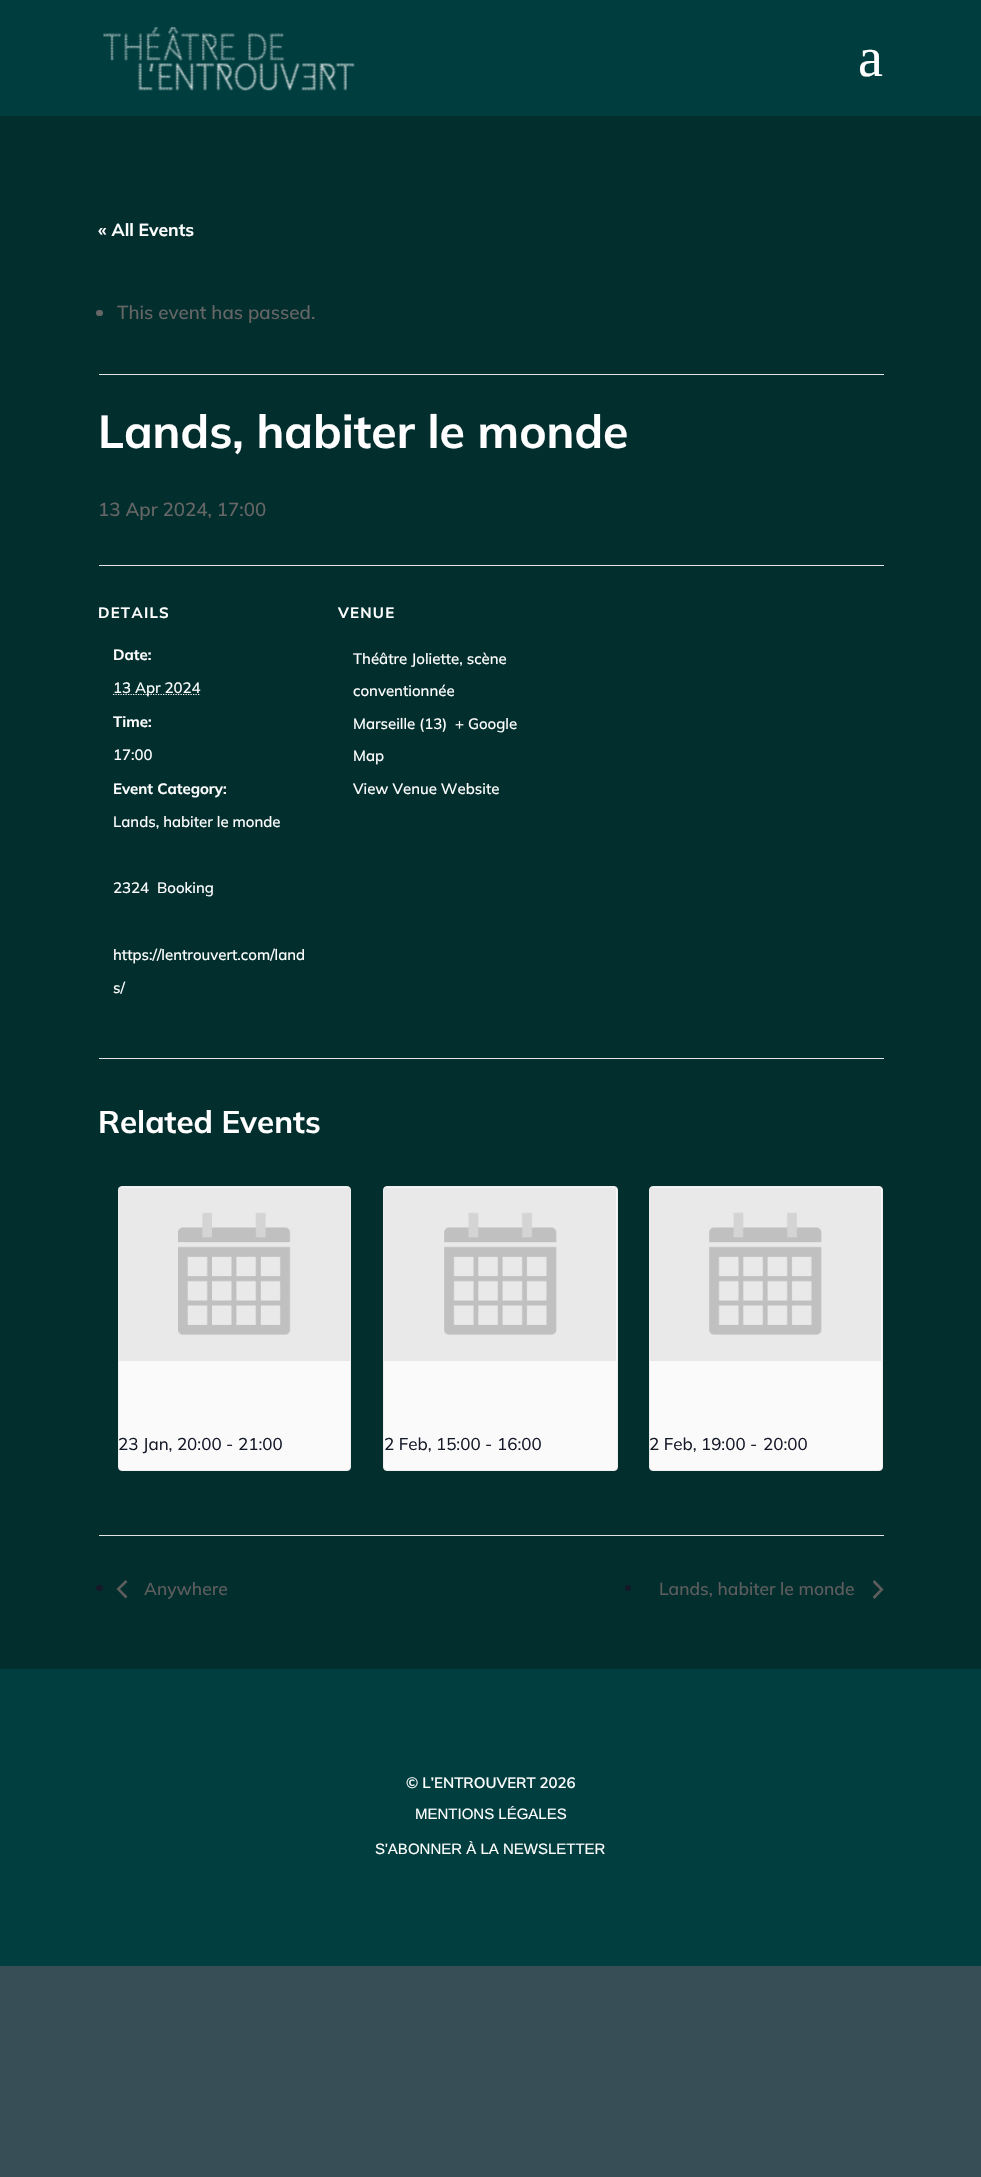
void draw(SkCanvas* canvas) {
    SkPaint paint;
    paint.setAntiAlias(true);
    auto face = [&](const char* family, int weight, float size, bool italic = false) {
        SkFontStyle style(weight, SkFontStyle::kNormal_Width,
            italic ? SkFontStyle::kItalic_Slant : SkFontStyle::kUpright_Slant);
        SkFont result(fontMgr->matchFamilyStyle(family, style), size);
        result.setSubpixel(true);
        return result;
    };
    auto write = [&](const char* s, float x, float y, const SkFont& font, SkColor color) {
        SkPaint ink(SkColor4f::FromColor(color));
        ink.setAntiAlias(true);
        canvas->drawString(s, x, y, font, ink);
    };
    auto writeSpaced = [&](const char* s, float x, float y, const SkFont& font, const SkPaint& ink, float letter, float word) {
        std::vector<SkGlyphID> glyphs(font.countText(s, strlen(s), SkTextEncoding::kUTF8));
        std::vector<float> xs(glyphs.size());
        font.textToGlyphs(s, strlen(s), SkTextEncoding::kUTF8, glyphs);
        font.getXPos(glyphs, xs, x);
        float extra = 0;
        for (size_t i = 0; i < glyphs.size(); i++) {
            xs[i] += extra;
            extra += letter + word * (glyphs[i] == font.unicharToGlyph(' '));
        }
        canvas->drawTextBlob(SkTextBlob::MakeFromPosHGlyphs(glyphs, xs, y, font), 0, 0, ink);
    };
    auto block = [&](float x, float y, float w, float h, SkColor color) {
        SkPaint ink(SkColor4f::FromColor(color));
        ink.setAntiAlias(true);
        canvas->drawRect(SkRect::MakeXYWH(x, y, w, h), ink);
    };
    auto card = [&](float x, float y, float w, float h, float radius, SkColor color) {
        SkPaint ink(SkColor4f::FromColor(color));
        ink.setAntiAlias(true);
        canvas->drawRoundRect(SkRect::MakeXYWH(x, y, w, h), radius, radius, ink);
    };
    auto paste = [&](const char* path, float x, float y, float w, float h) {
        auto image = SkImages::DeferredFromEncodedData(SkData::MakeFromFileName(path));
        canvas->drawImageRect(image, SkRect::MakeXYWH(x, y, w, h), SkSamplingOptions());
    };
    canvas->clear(SkColorSetRGB(55, 78, 87));
    block(0, 0, 981, 116, SkColorSetRGB(0, 61, 62));
    paste("pic1.png", 103, 27, 252, 64);
    auto kFont1 = face("Liberation Serif", 400, 56);
    write("a", 858, 76, kFont1, SK_ColorWHITE);
    block(0, 116, 981, 1553, SkColorSetRGB(3, 46, 46));
    auto kFont2 = face("Mulish", 700, 17.5f);
    write("« All Events", 98, 236, kFont2, SK_ColorWHITE);
    block(99, 374, 785, 1, SkColorSetRGB(228, 228, 228));
    card(96, 310, 7, 6, 3, SkColorSetRGB(102, 102, 102));
    auto kFont3 = face("Mulish", 500, 18.75f);
    write("This event has passed.", 117, 319, kFont3, SkColorSetRGB(102, 102, 102));
    auto kFont4 = face("Mulish", 700, 46.25f);
    write("Lands, habiter le monde", 98, 448, kFont4, SK_ColorWHITE);
    write("13 Apr 2024, 17:00", 98, 516, kFont3, SkColorSetRGB(102, 102, 102));
    block(99, 565, 785, 1, SkColorSetRGB(228, 228, 228));
    auto kFont5 = face("Mulish", 700, 15);
    paint.setColor(SK_ColorWHITE);
    writeSpaced("DETAILS", 98, 618, kFont5, paint, 1.25f, 0);
    write("Date:", 113, 660, kFont5, SK_ColorWHITE);
    paint.setStyle(SkPaint::kStroke_Style);
    paint.setStrokeWidth(1.2f);
    paint.setPathEffect(SkDashPathEffect::Make({{1.25f, 1.25f}}, 0));
    canvas->drawPath(SkPathBuilder().moveTo(113, 694.5f).lineTo(200.5f, 694.5f).detach(), paint);
    paint.setPathEffect(nullptr);
    auto kFont6 = face("Mulish", 500, 15);
    write("13 Apr 2024", 113, 693, kFont6, SK_ColorWHITE);
    write("Time:", 113, 727, kFont5, SK_ColorWHITE);
    write("17:00", 113, 760, kFont6, SK_ColorWHITE);
    write("Event Category:", 113, 794, kFont5, SK_ColorWHITE);
    write("Lands, habiter le monde", 113, 827, kFont6, SK_ColorWHITE);
    write("2324", 113, 893, kFont6, SK_ColorWHITE);
    write("Booking", 157, 893, kFont6, SK_ColorWHITE);
    write("https://lentrouvert.com/land", 113, 960, kFont6, SK_ColorWHITE);
    write("s/", 113, 993, kFont6, SK_ColorWHITE);
    paint.setStyle(SkPaint::kFill_Style);
    writeSpaced("VENUE", 338, 618, kFont5, paint, 1.25f, 0);
    write("Théâtre Joliette, scène", 353, 664, kFont6, SK_ColorWHITE);
    write("conventionnée", 353, 696, kFont6, SK_ColorWHITE);
    write("Marseille (13)", 353, 729, kFont6, SK_ColorWHITE);
    write("+ Google", 455, 729, kFont6, SK_ColorWHITE);
    write("Map", 353, 761, kFont6, SK_ColorWHITE);
    write("View Venue Website", 353, 794, kFont6, SK_ColorWHITE);
    block(99, 1058, 785, 1, SkColorSetRGB(228, 228, 228));
    auto kFont7 = face("Mulish", 700, 31.25f);
    write("Related Events", 98, 1133, kFont7, SK_ColorWHITE);
    paint.setColor(SkColorSetRGB(250, 250, 250));
    canvas->drawRoundRect(SkRect::MakeXYWH(118.5f, 1186.5f, 232, 284), 3.5f, 3.5f, paint);
    paint.setStyle(SkPaint::kStroke_Style);
    paint.setStrokeWidth(1);
    paint.setColor(SkColorSetRGB(238, 238, 238));
    canvas->drawRoundRect(SkRect::MakeXYWH(118.5f, 1186.5f, 232, 284), 3.5f, 3.5f, paint);
    paste("pic2.png", 118, 1187, 232, 174);
    auto kFont8 = face("Mulish", 400, 17);
    write("23 Jan, 20:00", 118, 1450, kFont8, SkColorSetRGB(20, 24, 39));
    write("-", 226, 1450, kFont8, SkColorSetRGB(20, 24, 39));
    write("21:00", 238, 1450, kFont8, SkColorSetRGB(20, 24, 39));
    paint.setStyle(SkPaint::kFill_Style);
    paint.setColor(SkColorSetRGB(250, 250, 250));
    canvas->drawRoundRect(SkRect::MakeXYWH(383.5f, 1186.5f, 234, 284), 3.5f, 3.5f, paint);
    paint.setStyle(SkPaint::kStroke_Style);
    paint.setColor(SkColorSetRGB(238, 238, 238));
    canvas->drawRoundRect(SkRect::MakeXYWH(383.5f, 1186.5f, 234, 284), 3.5f, 3.5f, paint);
    paste("pic3.png", 383, 1187, 233, 174);
    write("2 Feb, 15:00", 384, 1450, kFont8, SkColorSetRGB(20, 24, 39));
    write("-", 485, 1450, kFont8, SkColorSetRGB(20, 24, 39));
    write("16:00", 497, 1450, kFont8, SkColorSetRGB(20, 24, 39));
    paint.setStyle(SkPaint::kFill_Style);
    paint.setColor(SkColorSetRGB(250, 250, 250));
    canvas->drawRoundRect(SkRect::MakeXYWH(649.5f, 1186.5f, 233, 284), 3.5f, 3.5f, paint);
    paint.setStyle(SkPaint::kStroke_Style);
    paint.setColor(SkColorSetRGB(238, 238, 238));
    canvas->drawRoundRect(SkRect::MakeXYWH(649.5f, 1186.5f, 233, 284), 3.5f, 3.5f, paint);
    paste("pic4.png", 650, 1187, 231, 174);
    write("2 Feb, 19:00", 649, 1450, kFont8, SkColorSetRGB(20, 24, 39));
    write("-", 750, 1450, kFont8, SkColorSetRGB(20, 24, 39));
    write("20:00", 763, 1450, kFont8, SkColorSetRGB(20, 24, 39));
    block(99, 1535, 785, 1, SkColorSetRGB(228, 228, 228));
    card(96, 1585, 7, 6, 3, SkColorSetRGB(20, 24, 39));
    paint.setStyle(SkPaint::kFill_Style);
    paint.setColor(SkColorSetRGB(93, 93, 93));
    canvas->drawPath(SkPathBuilder().moveTo(127.5f, 1596.5f).lineTo(125.5f, 1598.5f).lineTo(116.5f, 1589).lineTo(125.5f, 1580).lineTo(127.5f, 1582).lineTo(120, 1589).close().detach(), paint);
    auto kFont9 = face("Mulish", 500, 17.5f);
    write("Anywhere", 144, 1595, kFont9, SkColorSetRGB(93, 93, 93));
    paint.setColor(SkColorSetRGB(20, 24, 39));
    canvas->drawCircle(628, 1588, 3, paint);
    write("Lands, habiter le monde", 659, 1595, kFont9, SkColorSetRGB(93, 93, 93));
    canvas->save();
    canvas->clipRect(SkRect::MakeXYWH(873, 1580, 11, 19));
    paint.setColor(SkColorSetRGB(93, 93, 93));
    canvas->drawPath(SkPathBuilder().moveTo(872.5f, 1582).lineTo(874.5f, 1580).lineTo(883.5f, 1589.5f).lineTo(874.5f, 1599).lineTo(872.5f, 1597).lineTo(880, 1589.5f).close().detach(), paint);
    canvas->restore();
    block(0, 1669, 981, 297, SkColorSetRGB(0, 62, 63));
    auto kFont10 = face("Mulish", 600, 15);
    write("© L’ENTROUVERT 2026", 406, 1788, kFont10, SK_ColorWHITE);
    auto kFont11 = face("Liberation Sans", 400, 15);
    write("MENTIONS LÉGALES", 415, 1819, kFont11, SK_ColorWHITE);
    write("S'ABONNER À LA NEWSLETTER", 375, 1854, kFont11, SK_ColorWHITE);
}
